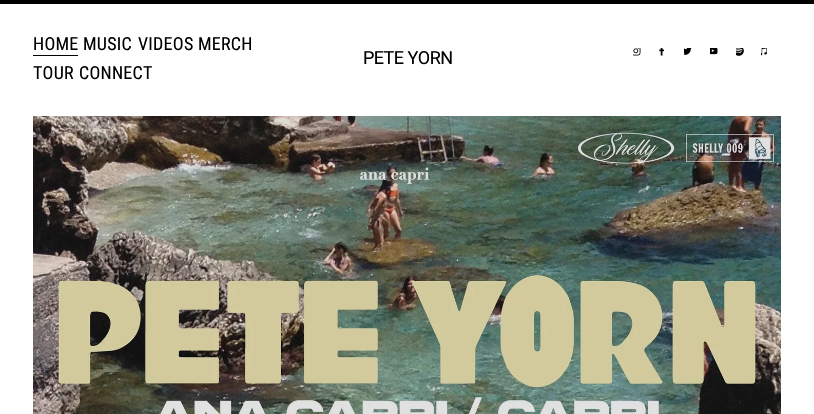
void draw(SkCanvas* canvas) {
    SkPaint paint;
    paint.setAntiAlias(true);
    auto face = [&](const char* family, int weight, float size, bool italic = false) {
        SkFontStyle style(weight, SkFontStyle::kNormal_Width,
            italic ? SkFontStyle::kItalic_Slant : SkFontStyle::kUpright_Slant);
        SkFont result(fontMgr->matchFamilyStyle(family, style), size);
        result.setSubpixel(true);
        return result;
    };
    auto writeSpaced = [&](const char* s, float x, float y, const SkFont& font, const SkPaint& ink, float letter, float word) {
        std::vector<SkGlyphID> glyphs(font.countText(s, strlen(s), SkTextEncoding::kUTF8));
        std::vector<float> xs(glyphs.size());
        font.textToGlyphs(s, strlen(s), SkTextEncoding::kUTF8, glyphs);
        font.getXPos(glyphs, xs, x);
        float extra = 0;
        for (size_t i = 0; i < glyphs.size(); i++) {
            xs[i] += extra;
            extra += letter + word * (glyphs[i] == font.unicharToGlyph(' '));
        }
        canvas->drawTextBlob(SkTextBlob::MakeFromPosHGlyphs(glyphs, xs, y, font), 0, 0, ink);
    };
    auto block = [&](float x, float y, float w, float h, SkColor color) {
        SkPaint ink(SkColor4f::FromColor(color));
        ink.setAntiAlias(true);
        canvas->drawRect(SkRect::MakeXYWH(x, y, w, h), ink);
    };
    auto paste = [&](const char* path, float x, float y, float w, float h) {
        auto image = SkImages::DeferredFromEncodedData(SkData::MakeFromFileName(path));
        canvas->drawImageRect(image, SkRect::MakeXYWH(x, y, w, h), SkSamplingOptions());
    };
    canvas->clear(SK_ColorWHITE);
    block(0, 0, 814, 4, SK_ColorBLACK);
    block(33, 55, 45, 1, SK_ColorBLACK);
    auto kFont1 = face("Roboto Condensed", 400, 18);
    paint.setColor(SK_ColorBLACK);
    writeSpaced("HOME", 33, 50, kFont1, paint, 0.25f, 0);
    writeSpaced("MUSIC", 83, 50, kFont1, paint, 0.25f, 0);
    writeSpaced("VIDEOS", 138, 50, kFont1, paint, 0.25f, 0);
    writeSpaced("MERCH", 198, 50, kFont1, paint, 0.25f, 0);
    writeSpaced("TOUR", 33, 79, kFont1, paint, 0.25f, 0);
    writeSpaced("CONNECT", 79, 79, kFont1, paint, 0.25f, 0);
    auto kFont2 = face("Roboto", 400, 18);
    writeSpaced("PETE YORN", 363, 64, kFont2, paint, -0.5f, 0);
    paste("pic1.png", 633, 48, 8, 8);
    paste("pic2.png", 659, 48, 6, 8);
    paste("pic3.png", 684, 48, 8, 7);
    paste("pic4.png", 710, 48, 8, 7);
    paste("pic5.png", 736, 48, 8, 8);
    paste("pic6.png", 761, 48, 6, 8);
    paste("pic7.png", 33, 116, 748, 298);
}
